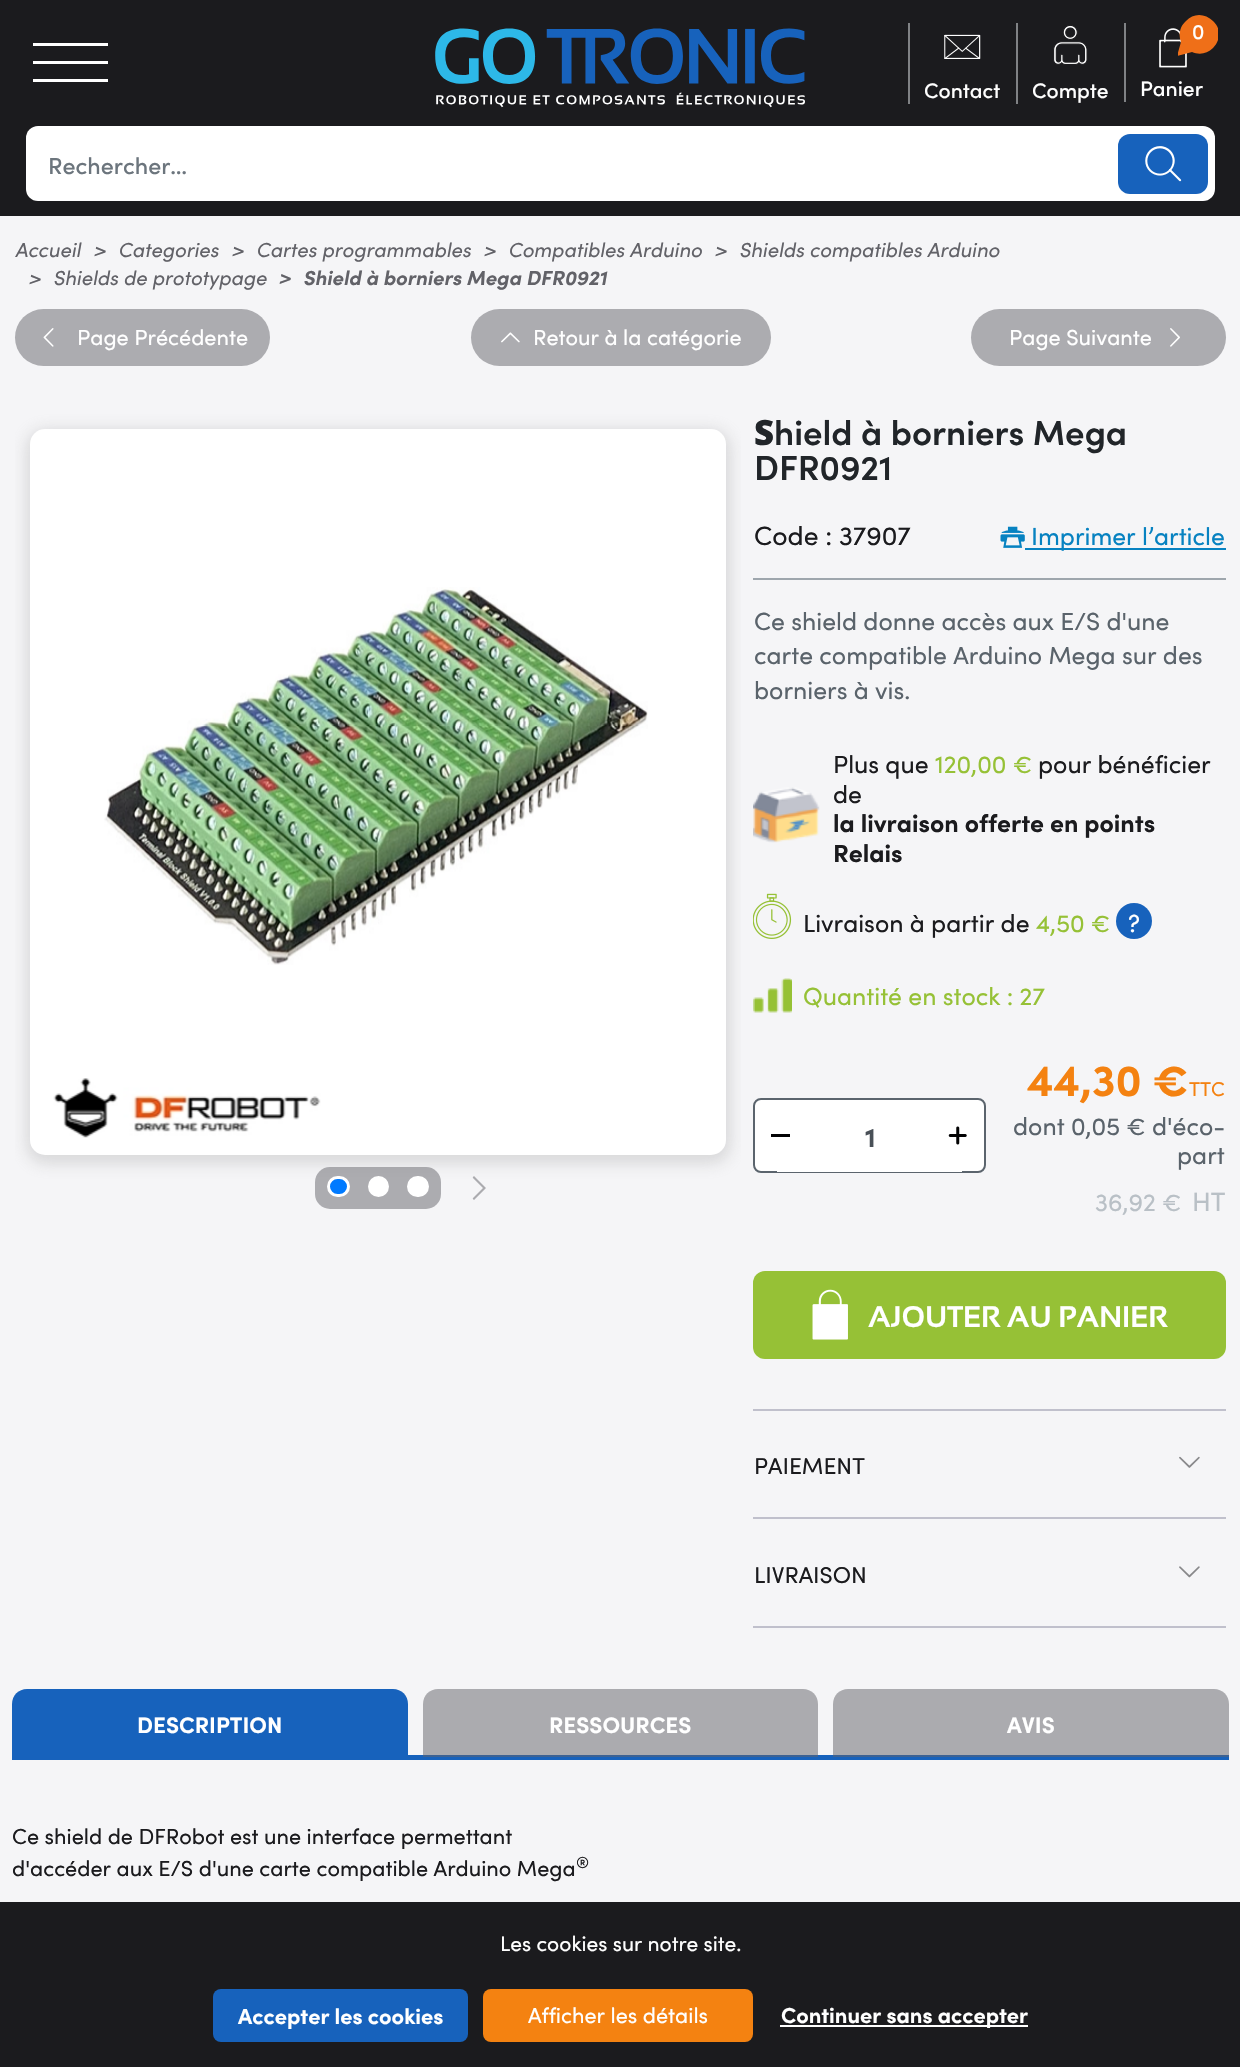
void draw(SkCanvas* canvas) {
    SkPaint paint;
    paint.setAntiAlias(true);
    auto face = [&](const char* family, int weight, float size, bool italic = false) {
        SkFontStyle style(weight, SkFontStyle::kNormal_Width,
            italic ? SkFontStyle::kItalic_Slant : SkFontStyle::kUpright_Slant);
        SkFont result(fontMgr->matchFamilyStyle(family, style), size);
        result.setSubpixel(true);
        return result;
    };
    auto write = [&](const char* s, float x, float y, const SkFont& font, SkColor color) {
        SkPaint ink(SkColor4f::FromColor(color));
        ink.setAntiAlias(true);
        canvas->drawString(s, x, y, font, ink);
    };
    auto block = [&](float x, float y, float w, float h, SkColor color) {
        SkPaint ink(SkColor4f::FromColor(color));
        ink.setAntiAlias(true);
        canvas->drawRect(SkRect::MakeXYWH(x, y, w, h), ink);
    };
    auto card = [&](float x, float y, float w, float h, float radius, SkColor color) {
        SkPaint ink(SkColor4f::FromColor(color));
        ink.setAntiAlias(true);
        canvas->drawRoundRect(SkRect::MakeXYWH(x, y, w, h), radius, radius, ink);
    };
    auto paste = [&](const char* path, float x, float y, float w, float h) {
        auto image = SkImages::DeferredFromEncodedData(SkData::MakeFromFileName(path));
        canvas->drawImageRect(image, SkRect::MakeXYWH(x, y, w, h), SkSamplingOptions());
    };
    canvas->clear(SkColorSetRGB(245, 245, 247));
    block(0, 0, 1240, 216, SkColorSetRGB(27, 27, 30));
    block(33, 43, 75, 3, SK_ColorWHITE);
    block(33, 61, 75, 3, SK_ColorWHITE);
    block(33, 79, 75, 3, SK_ColorWHITE);
    paste("pic1.png", 435, 28, 370, 80);
    block(908, 23, 2, 81, SkColorSetRGB(128, 130, 133));
    paste("pic2.png", 944, 34, 37, 25);
    auto kFont1 = face("Sofia", 500, 21);
    write("Contact", 924, 98, kFont1, SK_ColorWHITE);
    block(1016, 23, 2, 81, SkColorSetRGB(128, 130, 133));
    paste("pic3.png", 1053, 25, 35, 40);
    write("Compte", 1032, 98, kFont1, SK_ColorWHITE);
    block(1124, 23, 2, 79, SkColorSetRGB(128, 130, 133));
    paste("pic4.png", 1159, 28, 28, 40);
    canvas->save();
    canvas->clipRect(SkRect::MakeXYWH(1178, 15, 40, 42));
    paint.setColor(SkColorSetRGB(239, 111, 24));
    canvas->drawPath(SkPathBuilder().moveTo(1213, 48).cubicTo(1221, 40, 1221, 28, 1213, 21).cubicTo(1205, 13, 1193, 13, 1186, 21).cubicTo(1180, 26, 1178, 35, 1181, 42).lineTo(1177, 56).lineTo(1192, 52).cubicTo(1199, 55, 1207, 54, 1213, 48).detach(), paint);
    canvas->restore();
    write("0", 1192, 39, kFont1, SK_ColorWHITE);
    write("Panier", 1140, 96, kFont1, SK_ColorWHITE);
    card(26, 126, 1189, 75, 12, SK_ColorWHITE);
    auto kFont2 = face("Sofia", 500, 23.25f);
    write("Rechercher…", 48, 174, kFont2, SkColorSetRGB(108, 117, 125));
    card(1118, 134, 90, 60, 12, SkColorSetRGB(23, 98, 188));
    paste("pic5.png", 1145, 146, 37, 36);
    auto kFont3 = face("Sofia", 400, 20.2f, true);
    write("Accueil", 15, 257, kFont3, SkColorSetRGB(98, 98, 104));
    write(">", 93, 257, kFont3, SkColorSetRGB(98, 98, 104));
    write("Categories", 118, 257, kFont3, SkColorSetRGB(98, 98, 104));
    write(">", 231, 257, kFont3, SkColorSetRGB(98, 98, 104));
    write("Cartes programmables", 256, 257, kFont3, SkColorSetRGB(98, 98, 104));
    write(">", 483, 257, kFont3, SkColorSetRGB(98, 98, 104));
    write("Compatibles Arduino", 508, 257, kFont3, SkColorSetRGB(98, 98, 104));
    write(">", 714, 257, kFont3, SkColorSetRGB(98, 98, 104));
    write("Shields compatibles Arduino", 739, 257, kFont3, SkColorSetRGB(98, 98, 104));
    write(">", 28, 285, kFont3, SkColorSetRGB(98, 98, 104));
    write("Shields de prototypage", 53, 285, kFont3, SkColorSetRGB(98, 98, 104));
    auto kFont4 = face("Sofia", 700, 20.2f, true);
    write(">", 278, 285, kFont4, SkColorSetRGB(98, 98, 104));
    write("Shield à borniers Mega DFR0921", 303, 285, kFont4, SkColorSetRGB(98, 98, 104));
    card(15, 309, 255, 57, 28.5f, SkColorSetRGB(172, 172, 176));
    paste("pic6.png", 43, 328, 11, 19);
    auto kFont5 = face("Sofia", 400, 21.7f);
    write("Page Précédente", 77, 345, kFont5, SK_ColorWHITE);
    card(471, 309, 300, 57, 28.5f, SkColorSetRGB(172, 172, 176));
    paste("pic7.png", 501, 332, 19, 11);
    write("Retour à la catégorie", 533, 345, kFont5, SK_ColorWHITE);
    card(971, 309, 255, 57, 28.5f, SkColorSetRGB(172, 172, 176));
    write("Page Suivante", 1009, 345, kFont5, SK_ColorWHITE);
    paste("pic8.png", 1170, 328, 10, 19);
    block(753, 578, 473, 2, SkColorSetRGB(158, 166, 173));
    paste("pic13.png", 753, 787, 67, 56);
    paste("pic14.png", 753, 893, 39, 46);
    paste("pic15.png", 753, 978, 39, 35);
    paint.setColor(SK_ColorWHITE);
    canvas->drawRoundRect(SkRect::MakeXYWH(754, 1099, 231, 73), 7, 7, paint);
    paint.setStyle(SkPaint::kStroke_Style);
    paint.setStrokeWidth(2);
    paint.setColor(SkColorSetRGB(91, 100, 109));
    canvas->drawRoundRect(SkRect::MakeXYWH(754, 1099, 231, 73), 7, 7, paint);
    canvas->save();
    canvas->clipRect(SkRect::MakeXYWH(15, 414, 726, 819));
    paint.setStyle(SkPaint::kFill_Style);
    paint.setColor(SkColorSetARGB(79, 156, 156, 156));
    paint.setMaskFilter(SkMaskFilter::MakeBlur(kNormal_SkBlurStyle, 7.5f));
    canvas->drawRoundRect(SkRect::MakeXYWH(26, 429, 705, 735), 20, 20, paint);
    paint.setMaskFilter(nullptr);
    canvas->restore();
    card(30, 429, 696, 726, 15, SK_ColorWHITE);
    paste("pic9.png", 104, 587, 544, 378);
    paste("pic10.png", 53, 1078, 268, 60);
    card(315, 1167, 126, 42, 15, SkColorSetARGB(128, 99, 99, 105));
    paint.setColor(SkColorSetRGB(0, 122, 255));
    canvas->drawRoundRect(SkRect::MakeXYWH(328.5f, 1177.5f, 20, 18), 9, 9, paint);
    paint.setStyle(SkPaint::kStroke_Style);
    paint.setStrokeWidth(3);
    paint.setColor(SK_ColorWHITE);
    canvas->drawRoundRect(SkRect::MakeXYWH(328.5f, 1177.5f, 20, 18), 9, 9, paint);
    paint.setStyle(SkPaint::kFill_Style);
    canvas->drawCircle(378.5f, 1186.5f, 9, paint);
    paint.setStyle(SkPaint::kStroke_Style);
    canvas->drawCircle(378.5f, 1186.5f, 9, paint);
    paint.setStyle(SkPaint::kFill_Style);
    canvas->drawRoundRect(SkRect::MakeXYWH(408.5f, 1177.5f, 19, 18), 9, 9, paint);
    paint.setStyle(SkPaint::kStroke_Style);
    canvas->drawRoundRect(SkRect::MakeXYWH(408.5f, 1177.5f, 19, 18), 9, 9, paint);
    paste("pic11.png", 472, 1176, 14, 24);
    auto kFont6 = face("Noto Sans", 900, 34.75f);
    write("S", 754, 445, kFont6, SkColorSetRGB(33, 37, 41));
    auto kFont7 = face("Sofia", 600, 34.75f);
    write("hield à borniers Mega", 774, 445, kFont7, SkColorSetRGB(33, 37, 41));
    write("DFR0921", 754, 480, kFont7, SkColorSetRGB(33, 37, 41));
    auto kFont8 = face("Sofia", 400, 26.5f);
    write("Code : 37907", 754, 545, kFont8, SkColorSetRGB(27, 27, 30));
    paste("pic12.png", 1000, 526, 25, 22);
    block(1025, 548, 201, 2, SkColorSetRGB(7, 130, 193));
    auto kFont9 = face("Sofia", 400, 24.8f);
    write("Imprimer l’article", 1031, 545, kFont9, SkColorSetRGB(7, 130, 193));
    write("Ce shield donne accès aux E/S d'une", 754, 630, kFont9, SkColorSetRGB(90, 99, 107));
    write("carte compatible Arduino Mega sur des", 754, 664, kFont9, SkColorSetRGB(90, 99, 107));
    write("borniers à vis.", 754, 699, kFont9, SkColorSetRGB(90, 99, 107));
    write("Plus que", 833, 773, kFont9, SkColorSetRGB(27, 27, 30));
    write("120,00 €", 935, 773, kFont9, SkColorSetRGB(150, 193, 54));
    write("pour bénéficier", 1038, 773, kFont9, SkColorSetRGB(27, 27, 30));
    write("de", 833, 803, kFont9, SkColorSetRGB(27, 27, 30));
    auto kFont10 = face("Sofia", 700, 24.8f);
    write("la livraison offerte en points", 833, 832, kFont10, SkColorSetRGB(27, 27, 30));
    write("Relais", 833, 862, kFont10, SkColorSetRGB(27, 27, 30));
    write("Livraison à partir de", 803, 932, kFont9, SkColorSetRGB(27, 27, 30));
    write("4,50 €", 1036, 932, kFont9, SkColorSetRGB(150, 193, 54));
    paint.setStyle(SkPaint::kFill_Style);
    paint.setColor(SkColorSetRGB(23, 98, 188));
    canvas->drawCircle(1134, 921, 18, paint);
    write("?", 1128, 932, kFont9, SK_ColorWHITE);
    write("Quantité en stock : 27", 803, 1005, kFont9, SkColorSetRGB(150, 193, 54));
    block(771, 1134, 19, 3, SkColorSetRGB(2, 2, 3));
    block(777, 1171, 185, 1, SK_ColorWHITE);
    auto kFont11 = face("Sofia", 700, 27);
    write("1", 865, 1147, kFont11, SkColorSetRGB(73, 80, 87));
    paste("pic16.png", 948, 1126, 19, 19);
    auto kFont12 = face("Sofia", 700, 44.5f);
    write("44,30 €", 1027, 1096, kFont12, SkColorSetRGB(244, 130, 17));
    auto kFont13 = face("Sofia", 400, 20);
    write("TTC", 1189, 1096, kFont13, SkColorSetRGB(244, 130, 17));
    write("dont 0,05 € d'éco-", 1013, 1135, kFont9, SkColorSetRGB(90, 99, 107));
    write("part", 1177, 1164, kFont9, SkColorSetRGB(90, 99, 107));
    write("36,92 €", 1095, 1211, kFont9, SkColorSetRGB(185, 192, 198));
    write("HT", 1192, 1211, kFont8, SkColorSetRGB(185, 192, 198));
    card(753, 1271, 473, 88, 12, SkColorSetRGB(150, 193, 54));
    paste("pic17.png", 812, 1289, 36, 51);
    auto kFont14 = face("Sansation", 700, 29.75f);
    write("AJOUTER AU PANIER", 868, 1327, kFont14, SK_ColorWHITE);
    block(753, 1409, 473, 2, SkColorSetRGB(192, 192, 204));
    block(753, 1517, 473, 2, SkColorSetRGB(192, 192, 204));
    auto kFont15 = face("Sofia", 400, 23);
    write("PAIEMENT", 754, 1474, kFont15, SkColorSetRGB(27, 27, 30));
    paste("pic18.png", 1179, 1456, 21, 12);
    block(753, 1626, 473, 2, SkColorSetRGB(192, 192, 204));
    write("LIVRAISON", 754, 1583, kFont15, SkColorSetRGB(27, 27, 30));
    paste("pic19.png", 1179, 1566, 21, 12);
    block(12, 1755, 1217, 5, SkColorSetRGB(23, 98, 188));
    canvas->drawPath(SkPathBuilder().moveTo(27, 1689).lineTo(393, 1689).cubicTo(401.5f, 1689, 408, 1695.5f, 408, 1704).lineTo(408, 1757).lineTo(12, 1757).lineTo(12, 1704).cubicTo(12, 1695.5f, 18.5f, 1689, 27, 1689).close().detach(), paint);
    auto kFont16 = face("Sofia", 700, 22.5f);
    write("DESCRIPTION", 137, 1733, kFont16, SK_ColorWHITE);
    paint.setColor(SkColorSetARGB(128, 98, 98, 104));
    canvas->drawPath(SkPathBuilder().moveTo(438, 1689).lineTo(803, 1689).cubicTo(811.5f, 1689, 818, 1695.5f, 818, 1704).lineTo(818, 1757).lineTo(423, 1757).lineTo(423, 1704).cubicTo(423, 1695.5f, 429.5f, 1689, 438, 1689).close().detach(), paint);
    write("RESSOURCES", 549, 1733, kFont16, SK_ColorWHITE);
    canvas->drawPath(SkPathBuilder().moveTo(848, 1689).lineTo(1214, 1689).cubicTo(1222.5f, 1689, 1229, 1695.5f, 1229, 1704).lineTo(1229, 1757).lineTo(833, 1757).lineTo(833, 1704).cubicTo(833, 1695.5f, 839.5f, 1689, 848, 1689).close().detach(), paint);
    write("AVIS", 1007, 1733, kFont16, SK_ColorWHITE);
    write("Ce shield de DFRobot est une interface permettant", 12, 1844, kFont5, SkColorSetRGB(27, 27, 30));
    write("d'accéder aux E/S d'une carte compatible Arduino Mega", 12, 1876, kFont5, SkColorSetRGB(27, 27, 30));
    auto kFont17 = face("Sofia", 400, 16);
    write("®", 576, 1868, kFont17, SkColorSetRGB(27, 27, 30));
    block(0, 1902, 1240, 165, SkColorSetRGB(27, 27, 30));
    auto kFont18 = face("Sofia", 400, 21);
    write("Les cookies sur notre site.", 500, 1951, kFont18, SK_ColorWHITE);
    card(213, 1989, 255, 53, 8, SkColorSetRGB(23, 98, 188));
    auto kFont19 = face("Sofia", 700, 21.75f);
    write("Accepter les cookies", 238, 2024, kFont19, SK_ColorWHITE);
    card(483, 1989, 270, 53, 8, SkColorSetRGB(244, 130, 17));
    write("Afficher les détails", 528, 2023, kFont5, SK_ColorWHITE);
    block(780, 2025, 248, 2, SK_ColorWHITE);
    auto kFont20 = face("Sofia", 700, 21.7f);
    write("Continuer sans accepter", 781, 2023, kFont20, SK_ColorWHITE);
}
